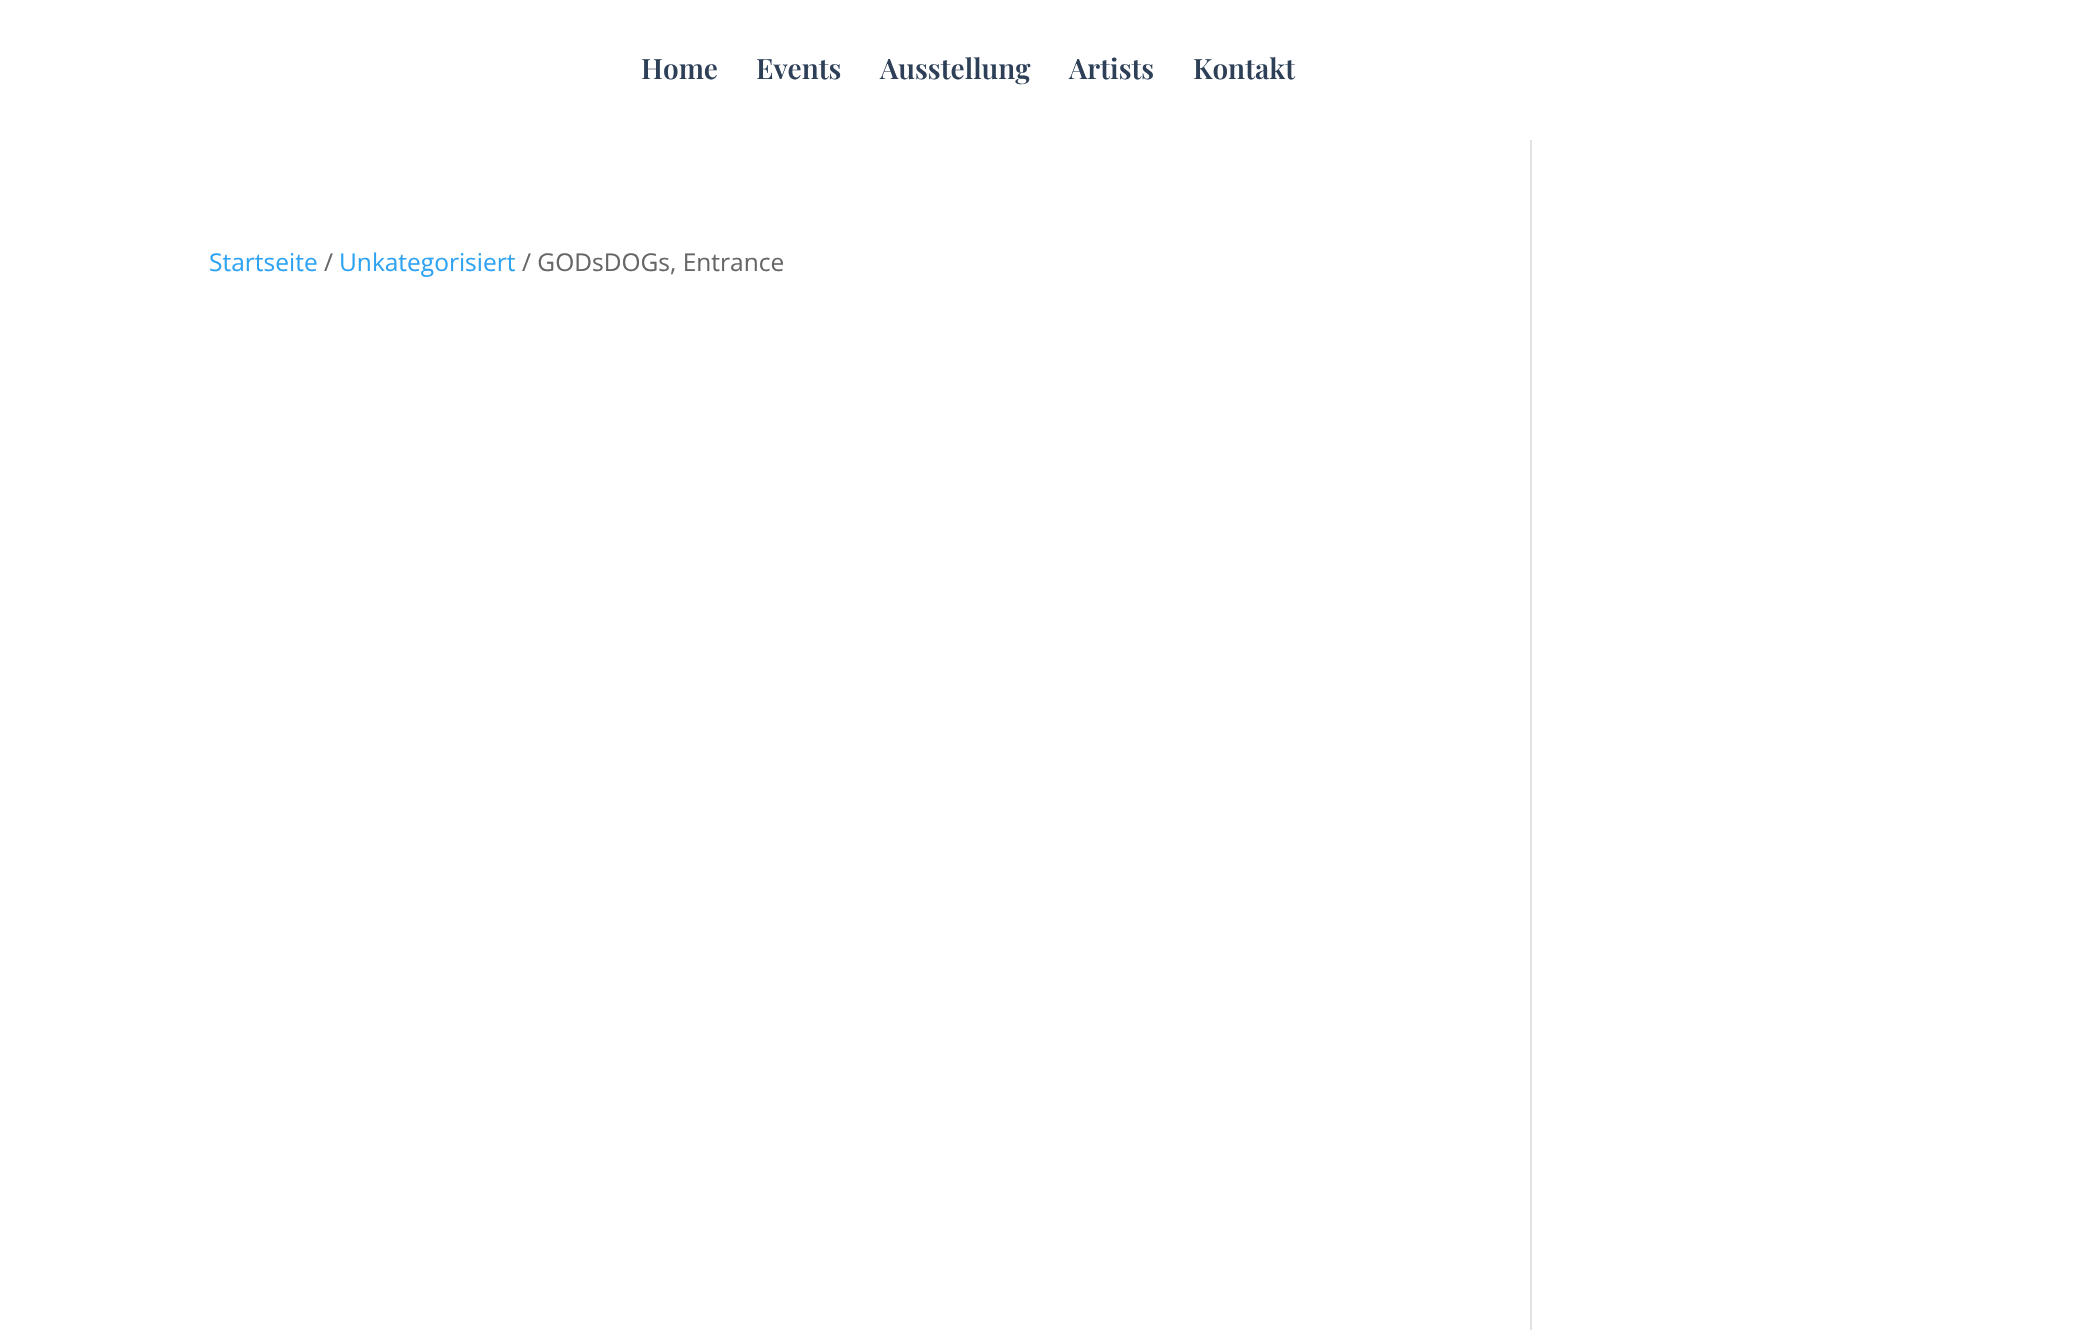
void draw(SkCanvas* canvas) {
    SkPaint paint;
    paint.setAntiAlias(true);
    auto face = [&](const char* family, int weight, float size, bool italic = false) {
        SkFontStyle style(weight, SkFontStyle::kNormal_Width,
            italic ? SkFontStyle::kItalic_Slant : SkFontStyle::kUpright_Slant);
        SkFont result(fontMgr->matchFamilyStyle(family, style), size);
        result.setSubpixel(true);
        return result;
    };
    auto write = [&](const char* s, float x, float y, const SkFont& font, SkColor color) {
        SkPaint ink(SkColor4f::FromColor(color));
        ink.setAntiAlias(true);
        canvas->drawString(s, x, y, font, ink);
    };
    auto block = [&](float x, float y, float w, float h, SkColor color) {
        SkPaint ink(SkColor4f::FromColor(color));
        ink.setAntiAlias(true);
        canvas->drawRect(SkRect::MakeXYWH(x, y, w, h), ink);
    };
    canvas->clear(SK_ColorWHITE);
    auto kFont1 = face("Playfair Display", 600, 28);
    write("Home", 641, 79, kFont1, SkColorSetRGB(45, 64, 88));
    write("Events", 756, 79, kFont1, SkColorSetRGB(45, 64, 88));
    write("Ausstellung", 880, 79, kFont1, SkColorSetRGB(45, 64, 88));
    write("Artists", 1069, 79, kFont1, SkColorSetRGB(45, 64, 88));
    write("Kontakt", 1193, 79, kFont1, SkColorSetRGB(45, 64, 88));
    auto kFont2 = face("Open Sans", 400, 24.5f);
    write("Startseite", 209, 271, kFont2, SkColorSetRGB(46, 163, 242));
    write("/", 324, 271, kFont2, SkColorSetRGB(102, 102, 102));
    write("Unkategorisiert", 339, 271, kFont2, SkColorSetRGB(46, 163, 242));
    write("/ GODsDOGs, Entrance", 522, 271, kFont2, SkColorSetRGB(102, 102, 102));
    block(1530, 140, 2, 1190, SkColorSetRGB(226, 226, 226));
}
